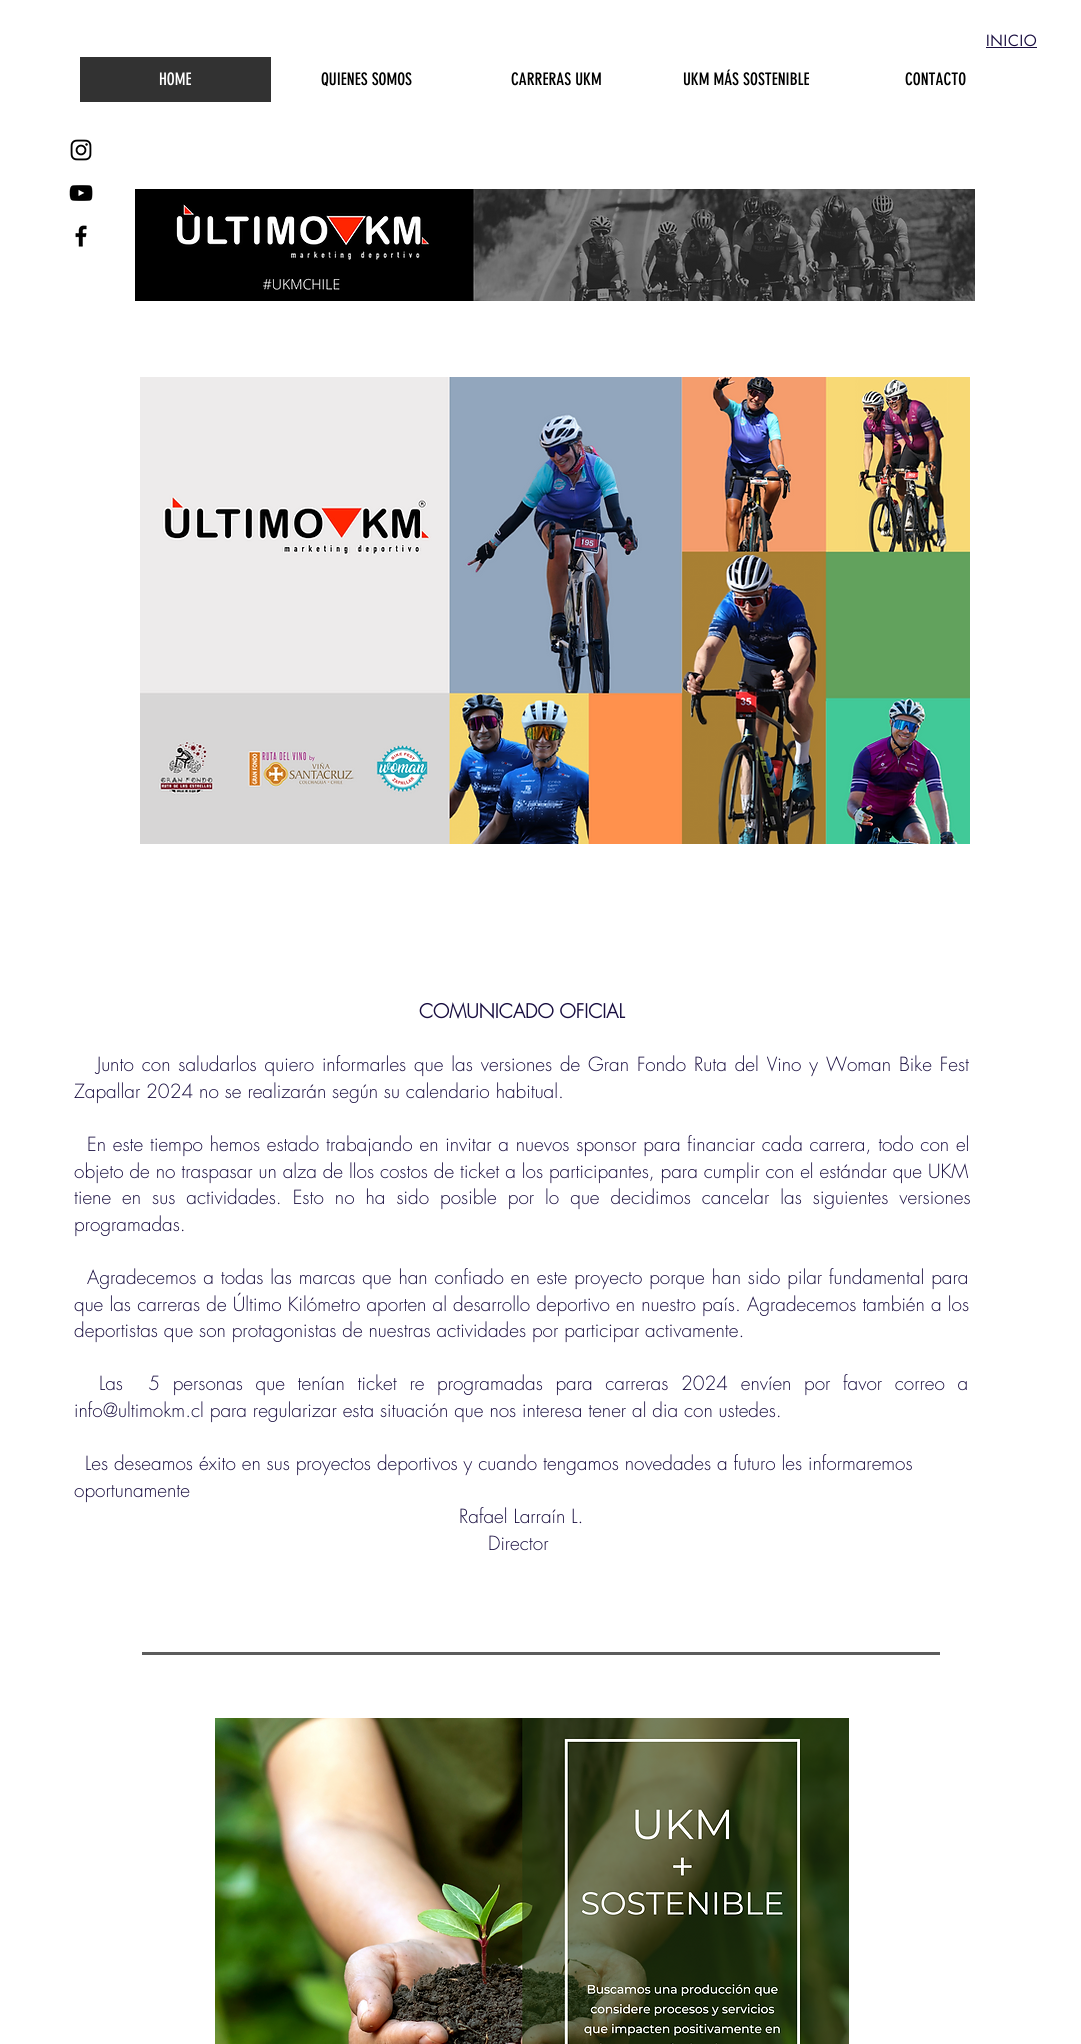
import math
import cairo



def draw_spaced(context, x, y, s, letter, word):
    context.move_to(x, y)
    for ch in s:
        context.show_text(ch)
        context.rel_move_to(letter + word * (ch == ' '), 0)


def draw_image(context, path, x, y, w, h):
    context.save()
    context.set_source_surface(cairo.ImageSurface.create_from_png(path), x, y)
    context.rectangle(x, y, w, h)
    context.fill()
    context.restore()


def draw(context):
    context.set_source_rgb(1, 1, 1)
    context.paint()
    context.set_source_rgb(25 / 255, 14 / 255, 64 / 255)
    context.rectangle(986, 47, 51, 1)
    context.fill()
    context.set_source_rgb(50 / 255, 50 / 255, 50 / 255)
    context.rectangle(80, 57, 191, 45)
    context.fill()
    draw_image(context, "images/1.png", 70, 139, 22, 22)
    draw_image(context, "images/2.png", 69, 185, 24, 16)
    draw_image(context, "images/3.png", 75, 225, 12, 22)
    draw_image(context, "images/4.png", 135, 189, 840, 112)
    draw_image(context, "images/5.png", 140, 377, 830, 467)
    context.set_source_rgb(92 / 255, 92 / 255, 92 / 255)
    context.rectangle(142, 1652, 798, 3)
    context.fill()
    draw_image(context, "images/6.png", 215, 1718, 634, 326)
    context.select_font_face("futura")
    context.set_font_size(15)
    context.set_source_rgb(25 / 255, 14 / 255, 64 / 255)
    draw_spaced(context, 986, 46, "INICIO", 0.75, 0)
    context.select_font_face("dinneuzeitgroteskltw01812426")
    context.set_font_size(17)
    context.set_source_rgb(1, 1, 1)
    context.move_to(159, 85)
    context.show_text("HOME")
    context.set_source_rgb(0, 0, 0)
    context.move_to(321, 85)
    context.show_text("QUIENES SOMOS")
    context.move_to(511, 85)
    context.show_text("CARRERAS UKM")
    context.move_to(683, 85)
    context.show_text("UKM MÁS SOSTENIBLE")
    context.move_to(905, 85)
    context.show_text("CONTACTO")
    context.select_font_face("futura", cairo.FontSlant.NORMAL, cairo.FontWeight.BOLD)
    context.set_font_size(19)
    context.set_source_rgb(25 / 255, 14 / 255, 64 / 255)
    context.move_to(419, 1018)
    context.show_text("COMUNICADO OFICIAL")
    context.select_font_face("futura Light")
    draw_spaced(context, 97, 1071, "Junto con saludarlos quiero informarles que las versiones de Gran Fondo Ruta del Vino y Woman Bike Fest", 0, 2)
    context.move_to(74, 1098)
    context.show_text("Zapallar 2024 no se realizarán según su calendario habitual.")
    draw_spaced(context, 87, 1151, "En este tiempo hemos estado trabajando en invitar a nuevos sponsor para financiar cada carrera, todo con el", 0, 0.9)
    context.move_to(74, 1178)
    context.show_text("objeto de no traspasar un alza de llos costos de ticket a los participantes, para cumplir con el estándar que UKM")
    draw_spaced(context, 74, 1204, "tiene en sus actividades. Esto no ha sido posible por lo que decidimos cancelar las siguientes versiones", 0, 5.1)
    context.move_to(74, 1231)
    context.show_text("programadas.")
    draw_spaced(context, 87, 1284, "Agradecemos a todas las marcas que han confiado en este proyecto porque han sido pilar fundamental para", 0, 1)
    draw_spaced(context, 74, 1311, "que las carreras de Último Kilómetro aporten al desarrollo deportivo en nuestro país. Agradecemos también a los", 0, 0.25)
    context.move_to(74, 1337)
    context.show_text("deportistas que son protagonistas de nuestras actividades por participar activamente.")
    draw_spaced(context, 99, 1390, "Las  5 personas que tenían ticket re programadas para carreras 2024 envíen por favor correo a", 0, 6.75)
    context.move_to(74, 1417)
    context.show_text("info@ultimokm.cl para regularizar esta situación que nos interesa tener al dia con ustedes.")
    context.move_to(85, 1470)
    context.show_text("Les deseamos éxito en sus proyectos deportivos y cuando tengamos novedades a futuro les informaremos")
    context.move_to(74, 1497)
    context.show_text("oportunamente")
    context.move_to(459, 1523)
    context.show_text("Rafael Larraín L.")
    context.move_to(488, 1550)
    context.show_text("Director")


surface = cairo.ImageSurface(cairo.Format.RGB24, 1081, 2044)
context = cairo.Context(surface)
options = cairo.FontOptions()
options.set_hint_metrics(cairo.HintMetrics.OFF)
options.set_hint_style(cairo.HintStyle.NONE)
context.set_font_options(options)
context.set_miter_limit(4)
draw(context)
surface.write_to_png("out.png")
